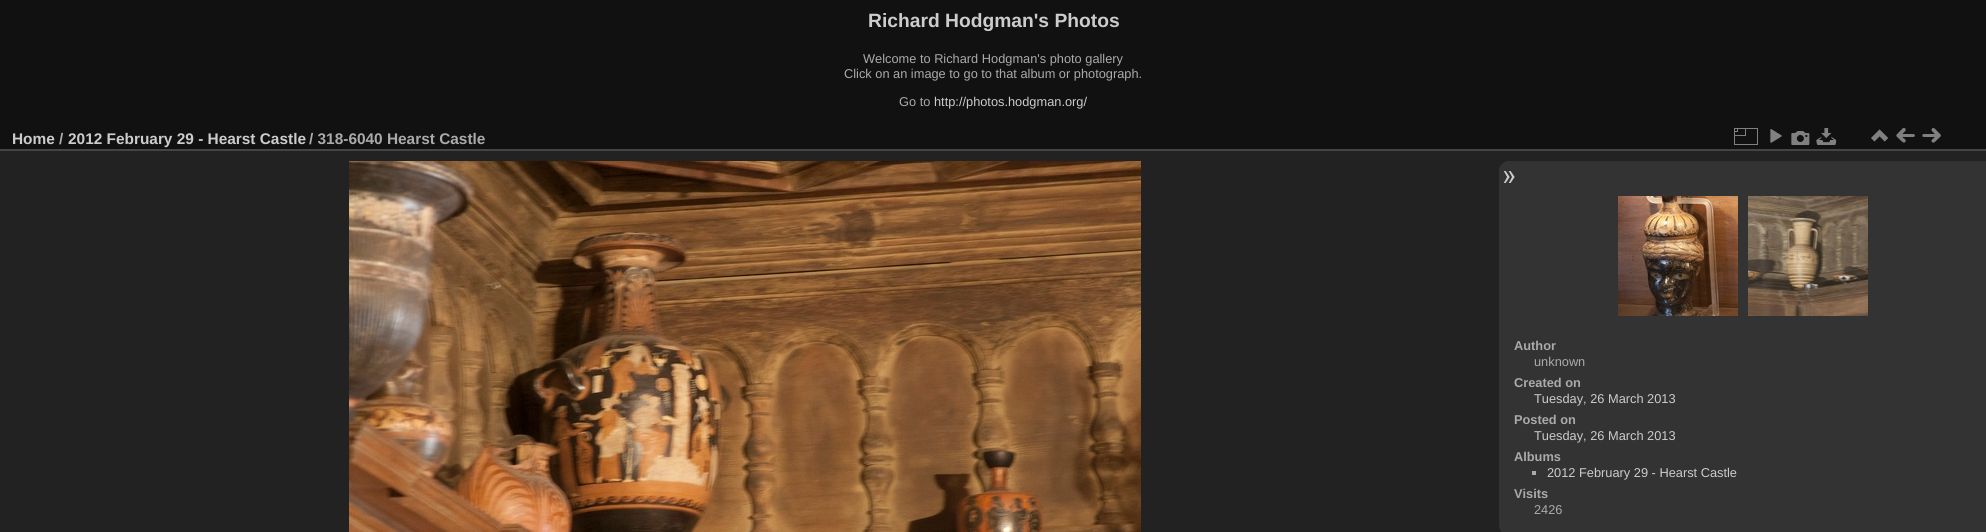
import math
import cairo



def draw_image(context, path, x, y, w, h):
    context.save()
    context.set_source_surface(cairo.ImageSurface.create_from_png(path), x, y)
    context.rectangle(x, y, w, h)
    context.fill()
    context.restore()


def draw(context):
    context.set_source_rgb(17 / 255, 17 / 255, 17 / 255)
    context.paint()
    context.set_source_rgb(34 / 255, 34 / 255, 34 / 255)
    context.rectangle(0, 151, 1986, 381)
    context.fill()
    context.set_source_rgb(68 / 255, 68 / 255, 68 / 255)
    context.rectangle(0, 149, 1986, 2)
    context.fill()
    draw_image(context, "images/1.png", 1734, 128, 24, 17)
    draw_image(context, "images/2.png", 1770, 129, 12, 14)
    draw_image(context, "images/3.png", 1791, 131, 19, 14)
    draw_image(context, "images/4.png", 1816, 128, 21, 17)
    draw_image(context, "images/5.png", 1871, 129, 17, 13)
    draw_image(context, "images/6.png", 1896, 128, 19, 15)
    draw_image(context, "images/7.png", 1922, 128, 19, 15)
    draw_image(context, "images/8.png", 349, 161, 792, 371)
    context.set_source_rgb(51 / 255, 51 / 255, 51 / 255)
    context.new_path()
    context.move_to(1509, 161)
    context.line_to(1986, 161)
    context.line_to(1986, 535)
    context.line_to(1509, 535)
    context.curve_to(1503.5, 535, 1499, 530.5, 1499, 525)
    context.line_to(1499, 171)
    context.curve_to(1499, 165.5, 1503.5, 161, 1509, 161)
    context.close_path()
    context.fill()
    draw_image(context, "images/9.png", 1503, 171, 12, 12)
    draw_image(context, "images/10.png", 1618, 196, 120, 120)
    draw_image(context, "images/11.png", 1748, 196, 120, 120)
    context.set_source_rgb(170 / 255, 170 / 255, 170 / 255)
    context.rectangle(1532, 471, 4, 4)
    context.fill()
    context.select_font_face("Liberation Sans", cairo.FontSlant.NORMAL, cairo.FontWeight.BOLD)
    context.set_font_size(19.25)
    context.set_source_rgb(204 / 255, 204 / 255, 204 / 255)
    context.move_to(868, 27)
    context.show_text("Richard Hodgman's Photos")
    context.select_font_face("Liberation Sans")
    context.set_font_size(12.8)
    context.set_source_rgb(170 / 255, 170 / 255, 170 / 255)
    context.move_to(863, 63)
    context.show_text("Welcome to Richard Hodgman's photo gallery")
    context.move_to(844, 78)
    context.show_text("Click on an image to go to that album or photograph.")
    context.move_to(899, 106)
    context.show_text("Go to")
    context.set_source_rgb(204 / 255, 204 / 255, 204 / 255)
    context.move_to(934, 106)
    context.show_text("http://photos.hodgman.org/")
    context.select_font_face("Liberation Sans", cairo.FontSlant.NORMAL, cairo.FontWeight.BOLD)
    context.set_font_size(15.4)
    context.move_to(12, 144)
    context.show_text("Home")
    context.set_source_rgb(170 / 255, 170 / 255, 170 / 255)
    context.move_to(59, 144)
    context.show_text("/")
    context.set_source_rgb(204 / 255, 204 / 255, 204 / 255)
    context.move_to(68, 144)
    context.show_text("2012 February 29 - Hearst Castle")
    context.set_source_rgb(170 / 255, 170 / 255, 170 / 255)
    context.move_to(309, 144)
    context.show_text("/ 318-6040 Hearst Castle")
    context.set_font_size(12.8)
    context.move_to(1514, 350)
    context.show_text("Author")
    context.select_font_face("Liberation Sans")
    context.move_to(1534, 366)
    context.show_text("unknown")
    context.select_font_face("Liberation Sans", cairo.FontSlant.NORMAL, cairo.FontWeight.BOLD)
    context.move_to(1514, 387)
    context.show_text("Created on")
    context.select_font_face("Liberation Sans")
    context.set_source_rgb(204 / 255, 204 / 255, 204 / 255)
    context.move_to(1534, 403)
    context.show_text("Tuesday, 26 March 2013")
    context.select_font_face("Liberation Sans", cairo.FontSlant.NORMAL, cairo.FontWeight.BOLD)
    context.set_source_rgb(170 / 255, 170 / 255, 170 / 255)
    context.move_to(1514, 424)
    context.show_text("Posted on")
    context.select_font_face("Liberation Sans")
    context.set_source_rgb(204 / 255, 204 / 255, 204 / 255)
    context.move_to(1534, 440)
    context.show_text("Tuesday, 26 March 2013")
    context.select_font_face("Liberation Sans", cairo.FontSlant.NORMAL, cairo.FontWeight.BOLD)
    context.set_source_rgb(170 / 255, 170 / 255, 170 / 255)
    context.move_to(1514, 461)
    context.show_text("Albums")
    context.select_font_face("Liberation Sans")
    context.set_source_rgb(204 / 255, 204 / 255, 204 / 255)
    context.move_to(1547, 477)
    context.show_text("2012 February 29 - Hearst Castle")
    context.select_font_face("Liberation Sans", cairo.FontSlant.NORMAL, cairo.FontWeight.BOLD)
    context.set_source_rgb(170 / 255, 170 / 255, 170 / 255)
    context.move_to(1514, 498)
    context.show_text("Visits")
    context.select_font_face("Liberation Sans")
    context.move_to(1534, 514)
    context.show_text("2426")


surface = cairo.ImageSurface(cairo.Format.RGB24, 1986, 532)
context = cairo.Context(surface)
options = cairo.FontOptions()
options.set_hint_metrics(cairo.HintMetrics.OFF)
options.set_hint_style(cairo.HintStyle.NONE)
context.set_font_options(options)
context.set_miter_limit(4)
draw(context)
surface.write_to_png("out.png")
